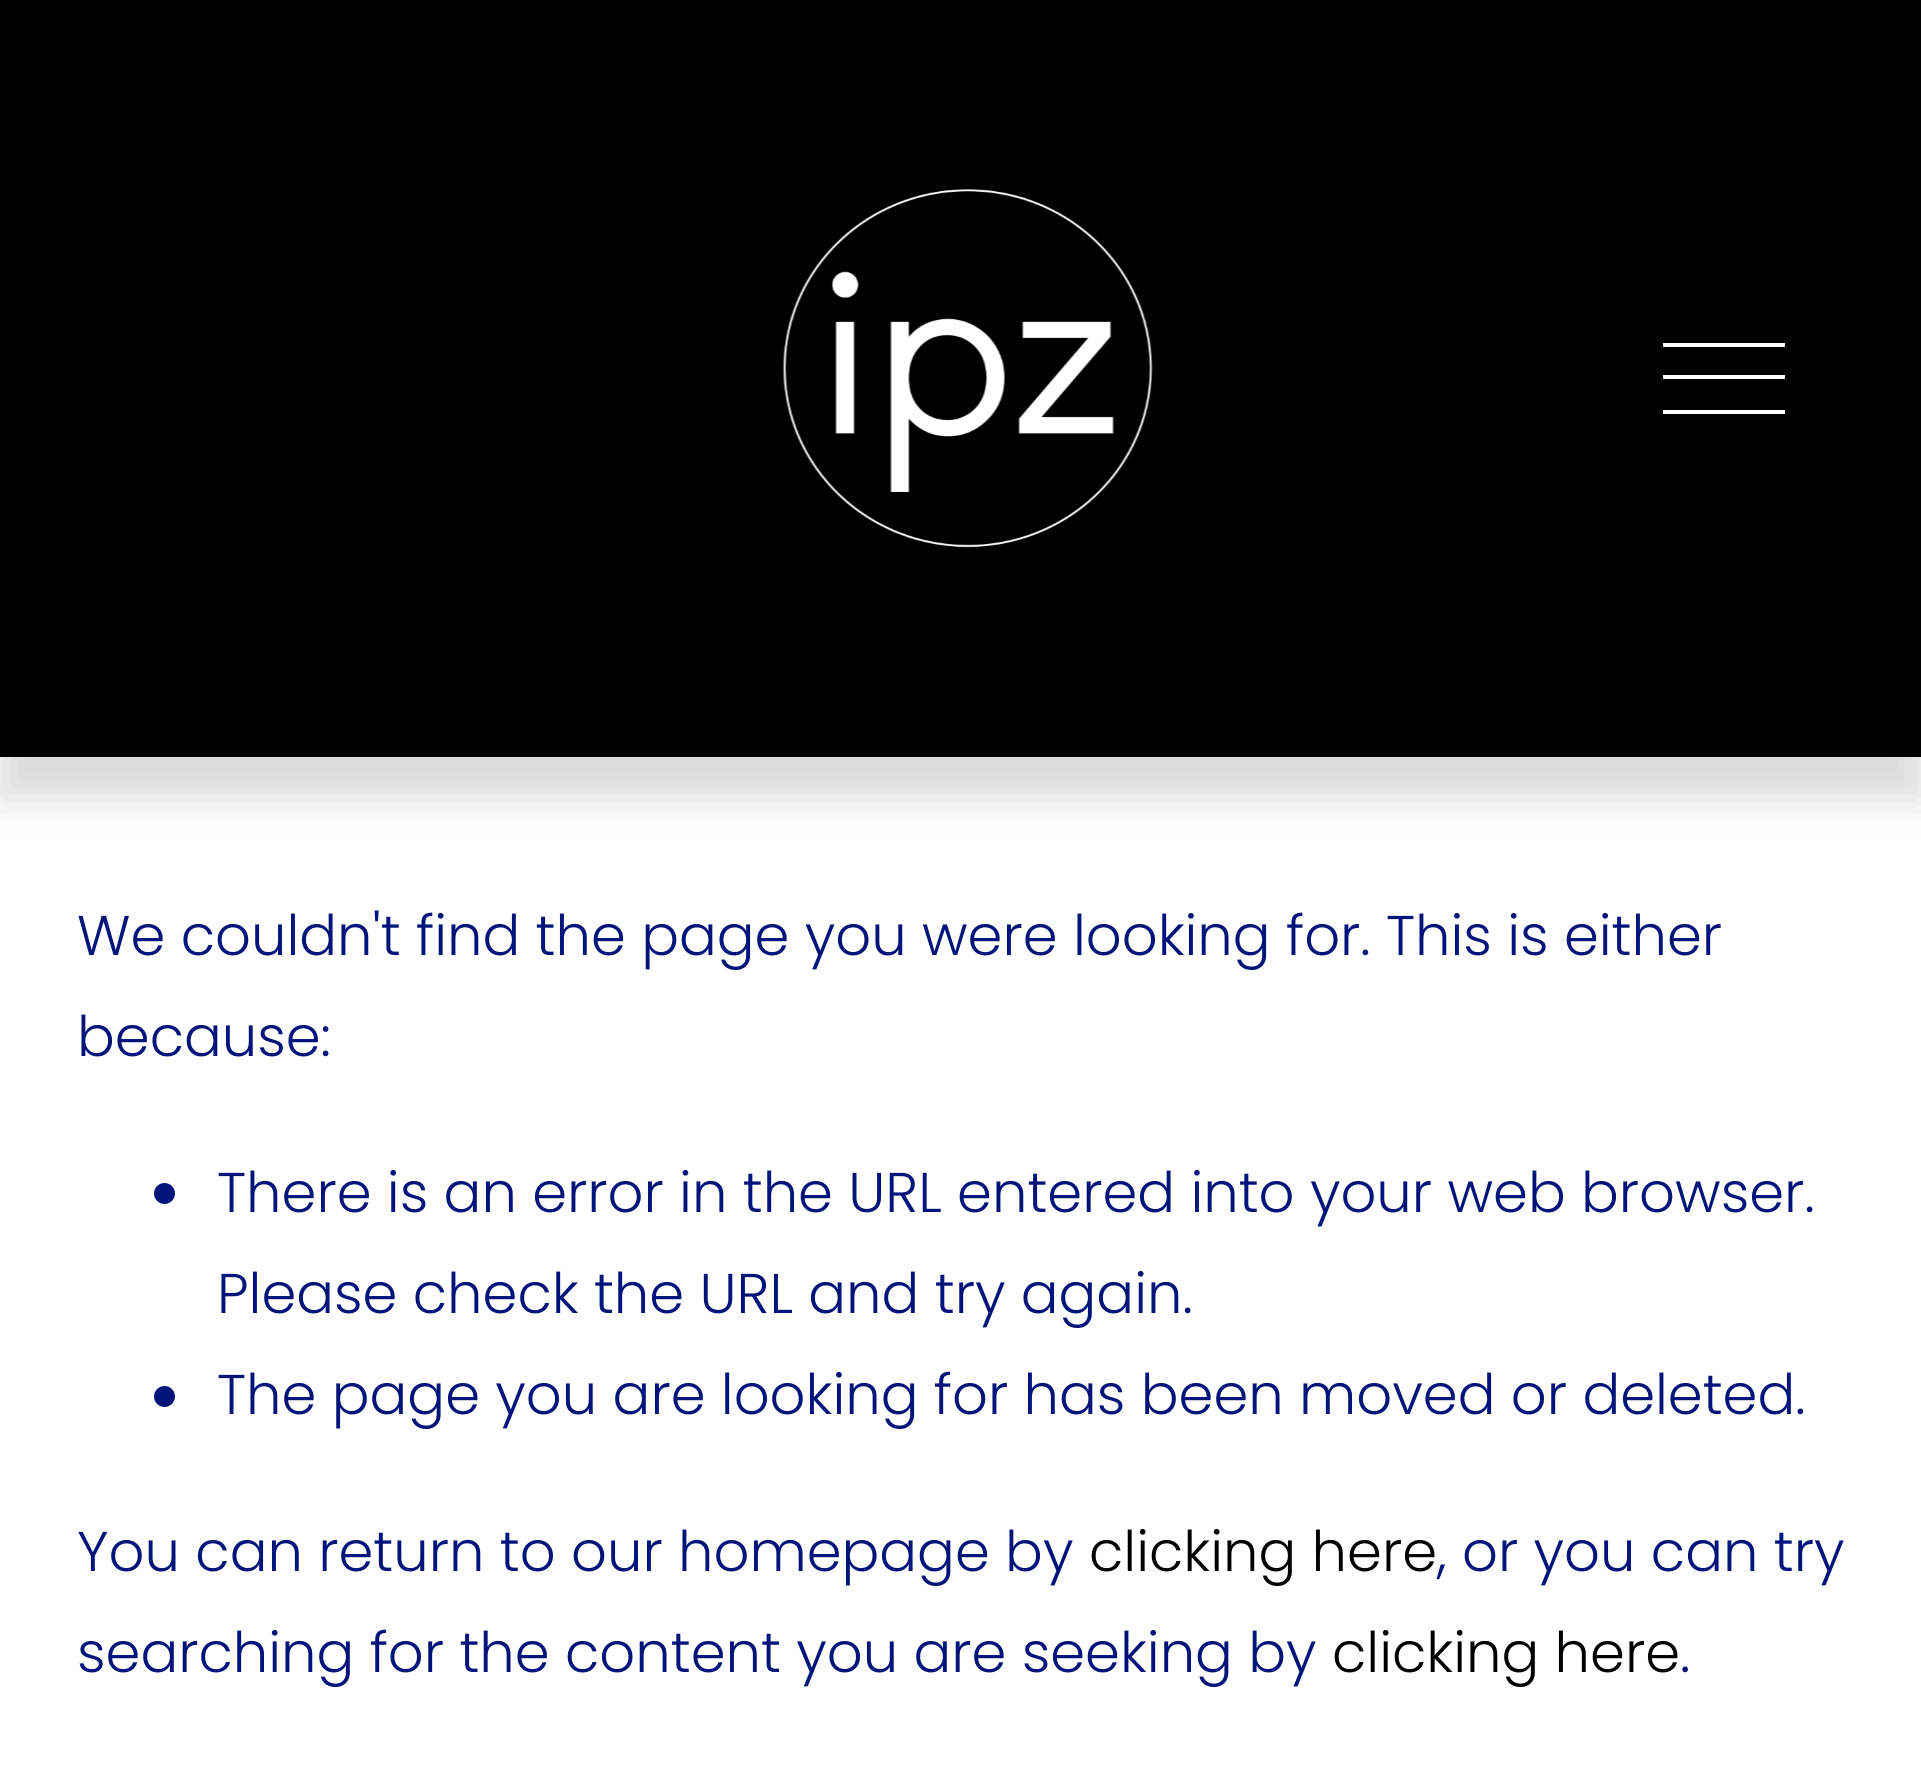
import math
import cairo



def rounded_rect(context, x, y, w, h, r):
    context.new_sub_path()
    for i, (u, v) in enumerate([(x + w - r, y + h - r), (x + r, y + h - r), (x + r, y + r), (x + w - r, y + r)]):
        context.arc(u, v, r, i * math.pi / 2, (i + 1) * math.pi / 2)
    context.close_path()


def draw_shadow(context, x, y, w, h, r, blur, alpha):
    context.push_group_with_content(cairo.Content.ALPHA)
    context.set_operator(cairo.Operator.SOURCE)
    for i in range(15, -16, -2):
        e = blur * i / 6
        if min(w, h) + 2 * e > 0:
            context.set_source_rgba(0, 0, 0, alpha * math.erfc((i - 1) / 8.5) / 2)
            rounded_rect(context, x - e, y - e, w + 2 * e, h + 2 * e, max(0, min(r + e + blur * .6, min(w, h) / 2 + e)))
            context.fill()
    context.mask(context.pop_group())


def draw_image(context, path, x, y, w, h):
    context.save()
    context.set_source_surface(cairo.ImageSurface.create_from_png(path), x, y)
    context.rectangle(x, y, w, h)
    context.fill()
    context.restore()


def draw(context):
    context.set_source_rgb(1, 1, 1)
    context.paint()
    context.set_source_rgb(0, 0, 0)
    context.rectangle(0, 0, 1921, 753)
    context.fill()
    context.save()
    context.rectangle(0, 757, 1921, 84)
    context.clip()
    context.set_source_rgb(217 / 255, 217 / 255, 217 / 255)
    draw_shadow(context, 0, 42, 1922, 756, 0, 21, 1)
    context.restore()
    draw_image(context, "images/1.png", 783, 189, 370, 359)
    context.set_source_rgb(1, 1, 1)
    context.rectangle(1663, 343, 122, 4)
    context.fill()
    context.rectangle(1663, 375, 122, 4)
    context.fill()
    context.rectangle(1663, 410, 122, 4)
    context.fill()
    context.set_source_rgb(0, 0, 0)
    context.rectangle(0, 753, 1921, 4)
    context.fill()
    context.set_source_rgb(0, 20 / 255, 122 / 255)
    context.arc(164.5, 1193.5, 10.5, 0, 2 * math.pi)
    context.fill()
    context.arc(164.5, 1396.5, 10.5, 0, 2 * math.pi)
    context.fill()
    context.select_font_face("Poppins Light")
    context.set_font_size(56)
    context.move_to(77, 955)
    context.show_text("We couldn't find the page you were looking for. This is either")
    context.move_to(77, 1056)
    context.show_text("because:")
    context.move_to(217, 1212)
    context.show_text("There is an error in the URL entered into your web browser.")
    context.move_to(217, 1313)
    context.show_text("Please check the URL and try again.")
    context.move_to(217, 1414)
    context.show_text("The page you are looking for has been moved or deleted.")
    context.move_to(77, 1571)
    context.show_text("You can return to our homepage by")
    context.set_source_rgb(0, 0, 0)
    context.move_to(1089, 1571)
    context.show_text("clicking here")
    context.set_source_rgb(0, 20 / 255, 122 / 255)
    context.move_to(1437, 1571)
    context.show_text(", or you can try")
    context.move_to(77, 1672)
    context.show_text("searching for the content you are seeking by")
    context.set_source_rgb(0, 0, 0)
    context.move_to(1332, 1672)
    context.show_text("clicking here")
    context.set_source_rgb(0, 20 / 255, 122 / 255)
    context.move_to(1680, 1672)
    context.show_text(".")


surface = cairo.ImageSurface(cairo.Format.RGB24, 1921, 1775)
context = cairo.Context(surface)
options = cairo.FontOptions()
options.set_hint_metrics(cairo.HintMetrics.OFF)
options.set_hint_style(cairo.HintStyle.NONE)
context.set_font_options(options)
context.set_miter_limit(4)
draw(context)
surface.write_to_png("out.png")
